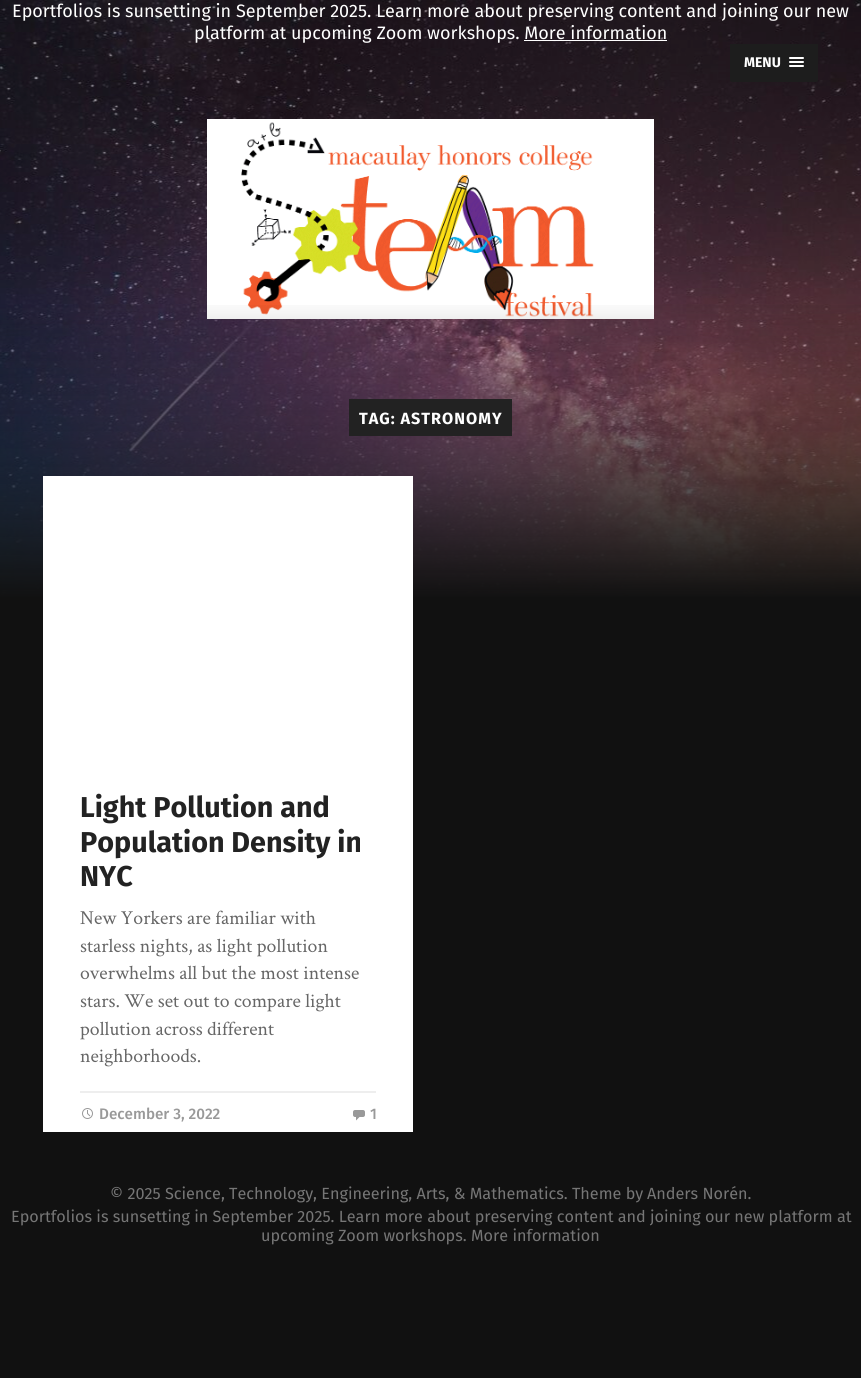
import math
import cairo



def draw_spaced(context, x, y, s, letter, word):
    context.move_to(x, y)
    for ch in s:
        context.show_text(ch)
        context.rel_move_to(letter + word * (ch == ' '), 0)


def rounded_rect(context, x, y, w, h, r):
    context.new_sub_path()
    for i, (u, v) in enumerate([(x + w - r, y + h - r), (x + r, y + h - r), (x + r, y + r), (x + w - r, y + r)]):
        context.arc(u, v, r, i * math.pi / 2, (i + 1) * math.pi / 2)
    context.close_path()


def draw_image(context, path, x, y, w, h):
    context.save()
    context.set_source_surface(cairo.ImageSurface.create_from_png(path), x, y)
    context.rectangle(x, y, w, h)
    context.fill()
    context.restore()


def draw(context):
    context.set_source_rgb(17 / 255, 17 / 255, 17 / 255)
    context.paint()
    draw_image(context, "images/1.png", 0, 0, 861, 597)
    context.set_source_rgb(1, 1, 1)
    context.rectangle(524, 40, 143, 1)
    context.fill()
    context.set_source_rgb(29 / 255, 29 / 255, 29 / 255)
    context.new_path()
    context.move_to(730, 44)
    context.line_to(818, 44)
    context.line_to(818, 80)
    context.curve_to(818, 81, 817, 82, 816, 82)
    context.line_to(732, 82)
    context.curve_to(731, 82, 730, 81, 730, 80)
    context.close_path()
    context.fill()
    context.set_source_rgb(1, 1, 1)
    rounded_rect(context, 789, 57, 15, 2, 1)
    context.fill()
    rounded_rect(context, 789, 61, 15, 2, 1)
    context.fill()
    rounded_rect(context, 789, 65, 15, 2, 1)
    context.fill()
    draw_image(context, "images/2.png", 207, 119, 447, 200)
    gradient = cairo.LinearGradient(431, 299, 431, 599)
    gradient.add_color_stop_rgba(0, 17 / 255, 17 / 255, 17 / 255, 0)
    gradient.add_color_stop_rgba(1, 17 / 255, 17 / 255, 17 / 255, 1)
    context.set_source(gradient)
    context.rectangle(0, 305, 861, 292)
    context.fill()
    context.set_source_rgb(34 / 255, 34 / 255, 34 / 255)
    context.rectangle(349, 399, 163, 37)
    context.fill()
    context.set_source_rgb(1, 1, 1)
    context.rectangle(43, 476, 370, 656)
    context.fill()
    context.set_source_rgb(238 / 255, 238 / 255, 238 / 255)
    context.rectangle(80, 1091, 296, 2)
    context.fill()
    draw_image(context, "images/3.png", 82, 1108, 11, 11)
    draw_image(context, "images/4.png", 353, 1110, 12, 11)
    context.select_font_face("Fira Sans")
    context.set_font_size(18)
    context.set_source_rgb(1, 1, 1)
    context.move_to(12, 17)
    context.show_text("Eportfolios is sunsetting in September 2025. Learn more about preserving content and joining our new")
    context.move_to(194, 39)
    context.show_text("platform at upcoming Zoom workshops. More information")
    context.select_font_face("Fira Sans", cairo.FontSlant.NORMAL, cairo.FontWeight.BOLD)
    context.set_font_size(14)
    context.move_to(744, 67)
    context.show_text("MENU")
    context.set_font_size(16.2)
    draw_spaced(context, 359, 424, "TAG: ASTRONOMY", 1, 0)
    context.set_font_size(28.75)
    context.set_source_rgb(34 / 255, 34 / 255, 34 / 255)
    context.move_to(80, 817)
    context.show_text("Light Pollution and")
    context.move_to(80, 852)
    context.show_text("Population Density in")
    context.move_to(80, 886)
    context.show_text("NYC")
    context.select_font_face("Crimson Text")
    context.set_font_size(19.75)
    context.set_source_rgb(102 / 255, 102 / 255, 102 / 255)
    context.move_to(80, 924)
    context.show_text("New Yorkers are familiar with")
    context.move_to(80, 952)
    context.show_text("starless nights, as light pollution")
    context.move_to(80, 979)
    context.show_text("overwhelms all but the most intense")
    context.move_to(80, 1007)
    context.show_text("stars. We set out to compare light")
    context.move_to(80, 1035)
    context.show_text("pollution across different")
    context.move_to(80, 1062)
    context.show_text("neighborhoods.")
    context.select_font_face("Fira Sans Medium")
    context.set_font_size(15.25)
    context.set_source_rgb(153 / 255, 153 / 255, 153 / 255)
    context.move_to(99, 1119)
    context.show_text("December 3, 2022")
    context.move_to(370, 1119)
    context.show_text("1")
    context.select_font_face("Fira Sans")
    context.set_font_size(16.2)
    context.set_source_rgb(118 / 255, 118 / 255, 118 / 255)
    context.move_to(110, 1199)
    context.show_text("© 2025 Science, Technology, Engineering, Arts, & Mathematics. Theme by")
    context.move_to(647, 1199)
    context.show_text("Anders Norén.")
    context.move_to(11, 1222)
    context.show_text("Eportfolios is sunsetting in September 2025. Learn more about preserving content and joining our new platform at")
    context.move_to(261, 1241)
    context.show_text("upcoming Zoom workshops. More information")


surface = cairo.ImageSurface(cairo.Format.RGB24, 861, 1378)
context = cairo.Context(surface)
options = cairo.FontOptions()
options.set_hint_metrics(cairo.HintMetrics.OFF)
options.set_hint_style(cairo.HintStyle.NONE)
context.set_font_options(options)
context.set_miter_limit(4)
draw(context)
surface.write_to_png("out.png")
